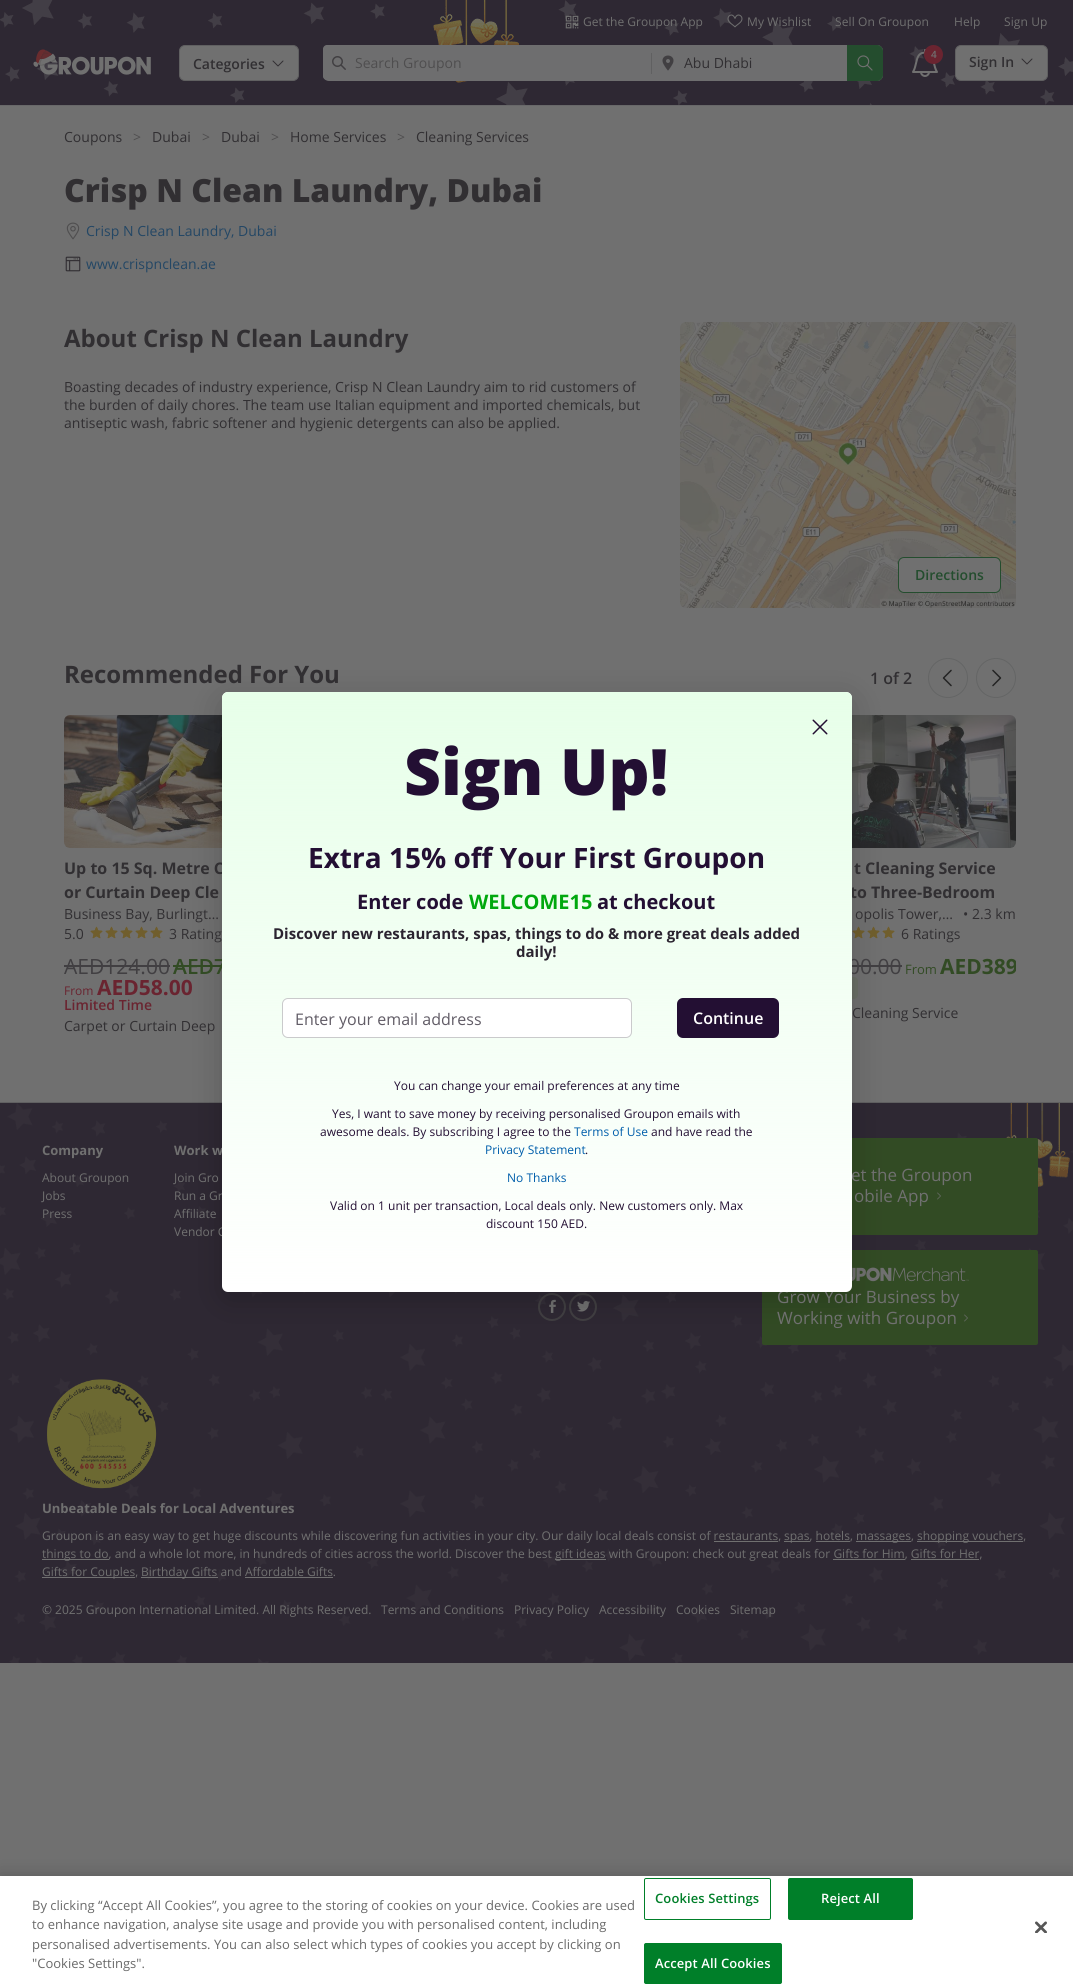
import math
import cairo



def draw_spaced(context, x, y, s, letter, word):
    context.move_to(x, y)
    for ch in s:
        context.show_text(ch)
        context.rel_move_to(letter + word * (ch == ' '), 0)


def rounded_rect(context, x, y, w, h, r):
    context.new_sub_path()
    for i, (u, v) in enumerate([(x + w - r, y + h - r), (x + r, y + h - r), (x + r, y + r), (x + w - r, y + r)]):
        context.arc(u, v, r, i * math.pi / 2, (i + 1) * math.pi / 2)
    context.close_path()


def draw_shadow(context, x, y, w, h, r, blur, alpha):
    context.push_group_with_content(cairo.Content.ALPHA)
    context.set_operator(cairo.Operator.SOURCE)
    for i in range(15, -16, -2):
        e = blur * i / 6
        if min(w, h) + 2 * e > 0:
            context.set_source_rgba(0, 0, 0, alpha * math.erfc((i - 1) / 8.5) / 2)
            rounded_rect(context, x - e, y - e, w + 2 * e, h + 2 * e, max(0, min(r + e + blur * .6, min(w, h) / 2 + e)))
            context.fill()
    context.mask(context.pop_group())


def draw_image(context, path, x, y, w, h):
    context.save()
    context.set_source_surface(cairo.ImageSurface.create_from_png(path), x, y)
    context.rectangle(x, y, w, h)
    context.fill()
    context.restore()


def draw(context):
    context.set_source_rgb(112 / 255, 112 / 255, 112 / 255)
    context.paint()
    draw_image(context, "images/1.png", 0, 0, 1073, 105)
    draw_image(context, "images/2.png", 565, 15, 14, 14)
    draw_image(context, "images/3.png", 727, 14, 16, 14)
    draw_image(context, "images/4.png", 33, 49, 118, 26)
    context.set_source_rgb(112 / 255, 112 / 255, 112 / 255)
    rounded_rect(context, 179.5, 45.5, 119, 35, 5.5)
    context.fill_preserve()
    context.set_source_rgb(96 / 255, 96 / 255, 97 / 255)
    context.set_line_width(1)
    context.stroke()
    draw_image(context, "images/5.png", 272, 60, 12, 7)
    context.set_source_rgb(110 / 255, 110 / 255, 111 / 255)
    rounded_rect(context, 323, 45, 560, 36, 6)
    context.fill()
    rounded_rect(context, 323, 45, 328, 35, 4)
    context.fill()
    draw_image(context, "images/6.png", 332, 56, 14, 14)
    context.set_source_rgb(96 / 255, 96 / 255, 97 / 255)
    context.rectangle(651, 53, 1, 21)
    context.fill()
    draw_image(context, "images/7.png", 662, 55, 12, 16)
    context.set_source_rgb(36 / 255, 77 / 255, 46 / 255)
    context.new_path()
    context.move_to(847.5, 45.5)
    context.line_to(877, 45.5)
    context.curve_to(880, 45.5, 882.5, 48, 882.5, 51)
    context.line_to(882.5, 75)
    context.curve_to(882.5, 78, 880, 80.5, 877, 80.5)
    context.line_to(847.5, 80.5)
    context.close_path()
    context.fill_preserve()
    context.stroke()
    draw_image(context, "images/8.png", 857, 55, 16, 16)
    draw_image(context, "images/9.png", 912, 49, 26, 28)
    context.set_source_rgb(106 / 255, 36 / 255, 48 / 255)
    context.arc(933.5, 54.5, 9.5, 0, 2 * math.pi)
    context.fill()
    context.set_source_rgb(112 / 255, 112 / 255, 112 / 255)
    rounded_rect(context, 955.5, 45.5, 92, 35, 5.5)
    context.fill_preserve()
    context.set_source_rgb(96 / 255, 96 / 255, 97 / 255)
    context.stroke()
    draw_image(context, "images/5.png", 1021, 58, 12, 7)
    context.set_source_rgb(104 / 255, 104 / 255, 105 / 255)
    context.rectangle(0, 105, 1073, 1)
    context.fill()
    draw_image(context, "images/10.png", 66, 222, 14, 18)
    draw_image(context, "images/11.png", 65, 256, 16, 16)
    draw_image(context, "images/12.png", 680, 322, 336, 286)
    context.set_source_rgb(112 / 255, 112 / 255, 112 / 255)
    rounded_rect(context, 898.5, 557.5, 102, 35, 5.5)
    context.fill_preserve()
    context.set_source_rgb(36 / 255, 77 / 255, 46 / 255)
    context.stroke()
    context.arc(948, 678, 19.5, 0, 2 * math.pi)
    context.set_source_rgb(100 / 255, 101 / 255, 101 / 255)
    context.stroke()
    draw_image(context, "images/13.png", 942, 669, 10, 18)
    context.arc(996, 678, 19.5, 0, 2 * math.pi)
    context.stroke()
    draw_image(context, "images/14.png", 992, 669, 10, 18)
    draw_image(context, "images/15.png", 64, 715, 158, 133)
    draw_image(context, "images/16.png", 90, 926, 13, 13)
    draw_image(context, "images/17.png", 90, 926, 13, 13)
    draw_image(context, "images/16.png", 105, 926, 13, 13)
    draw_image(context, "images/17.png", 105, 926, 13, 13)
    draw_image(context, "images/16.png", 120, 926, 13, 13)
    draw_image(context, "images/17.png", 120, 926, 13, 13)
    draw_image(context, "images/16.png", 135, 926, 13, 13)
    draw_image(context, "images/17.png", 135, 926, 13, 13)
    draw_image(context, "images/16.png", 150, 926, 13, 13)
    draw_image(context, "images/17.png", 150, 926, 13, 13)
    context.set_source_rgb(65 / 255, 63 / 255, 66 / 255)
    context.rectangle(64, 965, 106, 2)
    context.fill()
    context.set_source_rgb(50 / 255, 75 / 255, 36 / 255)
    context.rectangle(173, 965, 49, 2)
    context.fill()
    draw_image(context, "images/18.png", 852, 715, 164, 133)
    draw_image(context, "images/16.png", 852, 926, 13, 13)
    draw_image(context, "images/17.png", 852, 926, 13, 13)
    draw_image(context, "images/16.png", 867, 926, 13, 13)
    draw_image(context, "images/17.png", 867, 926, 13, 13)
    draw_image(context, "images/16.png", 882, 926, 13, 13)
    draw_image(context, "images/17.png", 882, 926, 13, 13)
    context.set_source_rgb(65 / 255, 63 / 255, 66 / 255)
    context.rectangle(852, 965, 50, 2)
    context.fill()
    context.set_source_rgb(106 / 255, 111 / 255, 102 / 255)
    rounded_rect(context, 796, 977, 62, 22, 4)
    context.fill()
    draw_image(context, "images/20.png", 0, 1103, 1073, 560)
    context.set_source_rgb(96 / 255, 96 / 255, 97 / 255)
    context.rectangle(0, 1102, 1073, 1)
    context.fill()
    context.arc(552, 1307, 13, 0, 2 * math.pi)
    context.set_source_rgb(65 / 255, 63 / 255, 66 / 255)
    context.set_line_width(2)
    context.stroke()
    draw_image(context, "images/21.png", 549, 1299, 7, 14)
    context.arc(583, 1307, 13, 0, 2 * math.pi)
    context.stroke()
    draw_image(context, "images/22.png", 577, 1300, 13, 12)
    context.set_source_rgb(50 / 255, 75 / 255, 36 / 255)
    rounded_rect(context, 762, 1138, 276, 97, 2)
    context.fill()
    rounded_rect(context, 762, 1250, 276, 95, 2)
    context.fill()
    draw_image(context, "images/24.png", 852, 1267, 117, 15)
    context.set_source_rgb(0, 0, 0)
    draw_shadow(context, 222, 700, 630, 600, 6, 16, 0.2)
    draw_image(context, "images/23.png", 937, 1192, 4, 8)
    draw_image(context, "images/23.png", 964, 1314, 4, 8)
    draw_image(context, "images/25.png", 47, 1379, 110, 110)
    context.set_source_rgb(112 / 255, 112 / 255, 112 / 255)
    context.rectangle(784, 1541, 26, 1)
    context.fill()
    context.rectangle(856, 1541, 55, 1)
    context.fill()
    context.rectangle(917, 1541, 106, 1)
    context.fill()
    context.rectangle(714, 1541, 64, 1)
    context.fill()
    context.rectangle(816, 1541, 34, 1)
    context.fill()
    context.rectangle(42, 1559, 67, 1)
    context.fill()
    context.rectangle(555, 1559, 51, 1)
    context.fill()
    context.rectangle(833, 1559, 72, 1)
    context.fill()
    context.rectangle(911, 1559, 68, 1)
    context.fill()
    context.rectangle(42, 1577, 93, 1)
    context.fill()
    context.rectangle(141, 1577, 77, 1)
    context.fill()
    context.rectangle(245, 1577, 88, 1)
    context.fill()
    context.set_source_rgb(0, 0, 0)
    draw_shadow(context, 0, 1876, 1073, 108, 0, 9, 0.2)
    context.set_source_rgb(1, 1, 1)
    context.rectangle(0, 1876, 1073, 108)
    context.fill()
    rounded_rect(context, 644.5, 1878.5, 126, 41, 1.5)
    context.set_source_rgb(0, 127 / 255, 41 / 255)
    context.set_line_width(1)
    context.stroke()
    rounded_rect(context, 788.5, 1878.5, 124, 41, 1.5)
    context.fill_preserve()
    context.stroke()
    rounded_rect(context, 644.5, 1943.5, 137, 40, 1.5)
    context.fill_preserve()
    context.stroke()
    draw_image(context, "images/26.png", 1035, 1921, 12, 12)
    context.select_font_face("Open Sans")
    context.set_font_size(12)
    context.set_source_rgb(112 / 255, 112 / 255, 112 / 255)
    context.move_to(583, 26)
    context.show_text("Get the Groupon App")
    draw_spaced(context, 747, 26, "My Wishlist", 0.1, 0)
    draw_spaced(context, 835, 26, "Sell On Groupon", 0.1, 0)
    draw_spaced(context, 954, 26, "Help", 0.1, 0)
    draw_spaced(context, 1004, 26, "Sign Up", 0.1, 0)
    context.select_font_face("Open Sans SemiBold")
    context.set_font_size(14)
    context.set_source_rgb(49 / 255, 47 / 255, 50 / 255)
    context.move_to(193, 69)
    context.show_text("Categories")
    context.select_font_face("Open Sans")
    context.set_source_rgb(79 / 255, 78 / 255, 79 / 255)
    context.move_to(355, 68)
    context.show_text("Search Groupon")
    context.set_source_rgb(49 / 255, 47 / 255, 50 / 255)
    context.move_to(684, 68)
    context.show_text("Abu Dhabi")
    context.select_font_face("Open Sans SemiBold")
    context.set_font_size(10)
    context.set_source_rgb(112 / 255, 112 / 255, 112 / 255)
    context.move_to(931, 58)
    context.show_text("4")
    context.set_font_size(14)
    context.set_source_rgb(49 / 255, 47 / 255, 50 / 255)
    context.move_to(969, 67)
    context.show_text("Sign In")
    context.select_font_face("Open Sans")
    context.move_to(64, 142)
    context.show_text("Coupons")
    context.set_source_rgb(79 / 255, 78 / 255, 79 / 255)
    context.move_to(133, 142)
    context.show_text(">")
    context.set_source_rgb(49 / 255, 47 / 255, 50 / 255)
    context.move_to(152, 142)
    context.show_text("Dubai")
    context.set_source_rgb(79 / 255, 78 / 255, 79 / 255)
    context.move_to(202, 142)
    context.show_text(">")
    context.set_source_rgb(49 / 255, 47 / 255, 50 / 255)
    context.move_to(221, 142)
    context.show_text("Dubai")
    context.set_source_rgb(79 / 255, 78 / 255, 79 / 255)
    context.move_to(271, 142)
    context.show_text(">")
    context.set_source_rgb(49 / 255, 47 / 255, 50 / 255)
    context.move_to(290, 142)
    context.show_text("Home Services")
    context.set_source_rgb(79 / 255, 78 / 255, 79 / 255)
    context.move_to(397, 142)
    context.show_text(">")
    context.set_source_rgb(49 / 255, 47 / 255, 50 / 255)
    context.move_to(416, 142)
    context.show_text("Cleaning Services")
    context.select_font_face("Open Sans ExtraBold")
    context.set_font_size(32)
    context.move_to(64, 202)
    context.show_text("Crisp N Clean Laundry, Dubai")
    context.select_font_face("Open Sans")
    context.set_font_size(14)
    context.set_source_rgb(36 / 255, 71 / 255, 101 / 255)
    context.move_to(86, 236)
    context.show_text("Crisp N Clean Laundry, Dubai")
    context.move_to(86, 269)
    context.show_text("www.crispnclean.ae")
    context.select_font_face("Open Sans", cairo.FontSlant.NORMAL, cairo.FontWeight.BOLD)
    context.set_font_size(24)
    context.set_source_rgb(49 / 255, 47 / 255, 50 / 255)
    context.move_to(64, 347)
    context.show_text("About Crisp N Clean Laundry")
    context.select_font_face("Open Sans")
    context.set_font_size(14)
    context.move_to(64, 392)
    context.show_text("Boasting decades of industry experience, Crisp N Clean Laundry aim to rid customers of")
    context.move_to(64, 410)
    context.show_text("the burden of daily chores. The team use Italian equipment and imported chemicals, but")
    context.move_to(64, 428)
    context.show_text("antiseptic wash, fabric softener and hygienic detergents can also be applied.")
    context.select_font_face("Open Sans SemiBold")
    context.set_source_rgb(36 / 255, 77 / 255, 46 / 255)
    context.move_to(915, 580)
    context.show_text("Directions")
    context.select_font_face("Open Sans", cairo.FontSlant.NORMAL, cairo.FontWeight.BOLD)
    context.set_font_size(24)
    context.set_source_rgb(49 / 255, 47 / 255, 50 / 255)
    context.move_to(64, 683)
    context.show_text("Recommended For You")
    context.select_font_face("Open Sans SemiBold")
    context.set_font_size(16)
    context.move_to(870, 684)
    context.show_text("1 of 2")
    context.select_font_face("Open Sans", cairo.FontSlant.NORMAL, cairo.FontWeight.BOLD)
    context.move_to(64, 874)
    context.show_text("Up to 15 Sq. Metre C")
    context.move_to(64, 898)
    context.show_text("or Curtain Deep Cle")
    context.select_font_face("Open Sans")
    context.set_font_size(14)
    context.move_to(64, 919)
    context.show_text("Business Bay, Burlingt…")
    context.move_to(64, 939)
    context.show_text("5.0")
    context.move_to(169, 939)
    context.show_text("3 Rating")
    context.set_font_size(21)
    context.set_source_rgb(65 / 255, 63 / 255, 66 / 255)
    context.move_to(64, 974)
    context.show_text("AED124.00")
    context.select_font_face("Open Sans SemiBold")
    context.set_source_rgb(50 / 255, 75 / 255, 36 / 255)
    context.move_to(173, 974)
    context.show_text("AED7")
    context.select_font_face("Open Sans")
    context.set_font_size(12)
    context.set_source_rgb(106 / 255, 36 / 255, 48 / 255)
    context.move_to(64, 995)
    context.show_text("From")
    context.select_font_face("Open Sans", cairo.FontSlant.NORMAL, cairo.FontWeight.BOLD)
    context.set_font_size(21)
    context.move_to(97, 995)
    context.show_text("AED58.00")
    context.select_font_face("Open Sans SemiBold")
    context.set_font_size(14)
    context.move_to(64, 1010)
    context.show_text("Limited Time")
    context.select_font_face("Open Sans")
    context.set_source_rgb(49 / 255, 47 / 255, 50 / 255)
    context.move_to(64, 1031)
    context.show_text("Carpet or Curtain Deep")
    context.select_font_face("Open Sans", cairo.FontSlant.NORMAL, cairo.FontWeight.BOLD)
    context.set_font_size(16)
    context.move_to(854, 874)
    context.show_text("t Cleaning Service")
    context.move_to(850, 898)
    context.show_text("to Three-Bedroom")
    context.select_font_face("Open Sans")
    context.set_font_size(14)
    context.move_to(855, 919)
    context.show_text("opolis Tower,…")
    context.move_to(963, 919)
    context.show_text("•")
    context.move_to(972, 919)
    context.show_text("2.3 km")
    context.move_to(901, 939)
    context.show_text("6 Ratings")
    context.set_font_size(21)
    context.set_source_rgb(65 / 255, 63 / 255, 66 / 255)
    context.move_to(848, 974)
    context.show_text("00.00")
    context.set_font_size(13)
    context.set_source_rgb(50 / 255, 75 / 255, 36 / 255)
    context.move_to(905, 974)
    context.show_text("From")
    context.save()
    context.rectangle(796, 856, 220, 167)
    context.clip()
    context.select_font_face("Open Sans", cairo.FontSlant.NORMAL, cairo.FontWeight.BOLD)
    context.set_font_size(21)
    context.move_to(940, 974)
    context.show_text("AED389")
    context.restore()
    context.set_font_size(14)
    context.set_source_rgb(49 / 255, 47 / 255, 50 / 255)
    context.move_to(852, 1018)
    context.show_text("Cleaning Service")
    context.select_font_face("Open Sans", cairo.FontSlant.NORMAL, cairo.FontWeight.BOLD)
    context.set_font_size(13)
    context.set_source_rgb(112 / 255, 112 / 255, 112 / 255)
    context.move_to(42, 1155)
    context.show_text("Company")
    context.select_font_face("Open Sans")
    context.set_font_size(12)
    context.move_to(42, 1182)
    context.show_text("About Groupon")
    context.move_to(42, 1200)
    context.show_text("Jobs")
    context.move_to(42, 1218)
    context.show_text("Press")
    context.select_font_face("Open Sans", cairo.FontSlant.NORMAL, cairo.FontWeight.BOLD)
    context.set_font_size(13)
    context.move_to(174, 1155)
    context.show_text("Work w")
    context.select_font_face("Open Sans")
    context.set_font_size(12)
    context.move_to(174, 1182)
    context.show_text("Join Gro")
    context.move_to(174, 1200)
    context.show_text("Run a Gr")
    context.move_to(174, 1218)
    context.show_text("Affiliate")
    context.move_to(174, 1236)
    context.show_text("Vendor C")
    context.set_font_size(17)
    context.move_to(851, 1181)
    context.show_text("et the Groupon")
    context.move_to(854, 1202)
    context.show_text("obile App")
    context.move_to(777, 1303)
    context.show_text("Grow Your Business by")
    context.set_source_rgb(1, 1, 1)
    rounded_rect(context, 222, 692, 630, 600, 6)
    context.fill()
    gradient = cairo.LinearGradient(537, 692, 537, 1292)
    gradient.add_color_stop_rgba(0, 231 / 255, 1, 233 / 255, 1)
    gradient.add_color_stop_rgba(1, 231 / 255, 1, 233 / 255, 0)
    gradient.add_color_stop_rgba(1, 1, 1, 1, 0)
    gradient.add_color_stop_rgba(1, 1, 1, 1, 1)
    context.set_source(gradient)
    rounded_rect(context, 222, 692, 630, 600, 6)
    context.fill()
    draw_image(context, "images/19.png", 812, 719, 16, 16)
    context.set_source_rgb(35 / 255, 15 / 255, 51 / 255)
    rounded_rect(context, 677, 998, 102, 40, 6)
    context.fill()
    context.select_font_face("Open Sans SemiBold")
    context.set_font_size(16)
    context.set_source_rgb(1, 1, 1)
    context.move_to(693, 1024)
    context.show_text("Continue")
    context.select_font_face("Open Sans")
    context.set_font_size(12)
    context.set_source_rgb(35 / 255, 15 / 255, 51 / 255)
    context.move_to(486, 1228)
    context.show_text("discount 150 AED.")
    context.move_to(330, 1210)
    context.show_text("Valid on 1 unit per transaction, Local deals only. New customers only. Max")
    context.set_source_rgb(0, 94 / 255, 171 / 255)
    context.move_to(507, 1182)
    context.show_text("No Thanks")
    context.set_source_rgb(35 / 255, 15 / 255, 51 / 255)
    context.move_to(585, 1154)
    context.show_text(".")
    context.set_source_rgb(0, 94 / 255, 171 / 255)
    context.move_to(485, 1154)
    context.show_text("Privacy Statement")
    context.set_source_rgb(35 / 255, 15 / 255, 51 / 255)
    context.move_to(651, 1136)
    context.show_text("and have read the")
    context.set_source_rgb(0, 94 / 255, 171 / 255)
    context.move_to(574, 1136)
    context.show_text("Terms of Use")
    context.set_source_rgb(35 / 255, 15 / 255, 51 / 255)
    context.move_to(320, 1136)
    context.show_text("awesome deals. By subscribing I agree to the")
    context.move_to(332, 1118)
    context.show_text("Yes, I want to save money by receiving personalised Groupon emails with")
    context.move_to(394, 1090)
    context.show_text("You can change your email preferences at any time")
    context.set_source_rgb(1, 1, 1)
    rounded_rect(context, 282.5, 998.5, 349, 39, 5.5)
    context.fill_preserve()
    context.set_source_rgb(202 / 255, 202 / 255, 204 / 255)
    context.stroke()
    context.set_font_size(16)
    context.set_source_rgb(97 / 255, 92 / 255, 102 / 255)
    context.move_to(295, 1025)
    context.show_text("Enter your email address")
    context.select_font_face("Open Sans", cairo.FontSlant.NORMAL, cairo.FontWeight.BOLD)
    context.set_font_size(15)
    context.set_source_rgb(43 / 255, 36 / 255, 48 / 255)
    context.move_to(516, 957)
    context.show_text("daily!")
    context.move_to(273, 939)
    context.show_text("Discover new restaurants, spas, things to do & more great deals added")
    context.set_font_size(20)
    context.set_source_rgb(35 / 255, 15 / 255, 51 / 255)
    context.move_to(597, 909)
    context.show_text("at checkout")
    context.set_source_rgb(0, 168 / 255, 14 / 255)
    context.move_to(469, 909)
    context.show_text("WELCOME15")
    context.set_source_rgb(35 / 255, 15 / 255, 51 / 255)
    context.move_to(357, 909)
    context.show_text("Enter code")
    context.set_font_size(28)
    context.move_to(308, 868)
    context.show_text("Extra 15% off Your First Groupon")
    context.select_font_face("Open Sans ExtraBold")
    context.set_font_size(64)
    context.move_to(404, 795)
    context.show_text("Sign Up!")
    context.select_font_face("Open Sans")
    context.set_font_size(17)
    context.set_source_rgb(112 / 255, 112 / 255, 112 / 255)
    context.move_to(777, 1324)
    context.show_text("Working with Groupon")
    context.select_font_face("Open Sans", cairo.FontSlant.NORMAL, cairo.FontWeight.BOLD)
    context.set_font_size(13)
    context.move_to(42, 1513)
    context.show_text("Unbeatable Deals for Local Adventures")
    context.select_font_face("Open Sans")
    context.set_font_size(12)
    context.move_to(42, 1540)
    context.show_text("Groupon is an easy way to get huge discounts while discovering fun activities in your city. Our daily local deals consist of restaurants,")
    context.move_to(784, 1540)
    context.show_text("spas, hotels,")
    context.move_to(856, 1540)
    context.show_text("massages,")
    context.move_to(917, 1540)
    context.show_text("shopping vouchers,")
    context.move_to(42, 1558)
    context.show_text("things to do, and a whole lot more, in hundreds of cities across the world. Discover the best")
    context.move_to(555, 1558)
    context.show_text("gift ideas with Groupon: check out great deals for Gifts for Him, Gifts for Her,")
    context.move_to(42, 1576)
    context.show_text("Gifts for Couples,")
    context.move_to(141, 1576)
    context.show_text("Birthday Gifts and Affordable Gifts.")
    context.move_to(42, 1614)
    context.show_text("© 2025 Groupon International Limited. All Rights Reserved.")
    context.move_to(381, 1614)
    context.show_text("Terms and Conditions")
    context.move_to(514, 1614)
    context.show_text("Privacy Policy")
    context.move_to(599, 1614)
    context.show_text("Accessibility")
    context.move_to(676, 1614)
    context.show_text("Cookies")
    context.move_to(730, 1614)
    context.show_text("Sitemap")
    context.set_font_size(13)
    context.set_source_rgb(105 / 255, 105 / 255, 105 / 255)
    context.move_to(32, 1910)
    context.show_text("By clicking “Accept All Cookies”, you agree to the storing of cookies on your device. Cookies are used")
    context.move_to(32, 1929)
    context.show_text("to enhance navigation, analyse site usage and provide you with personalised content, including")
    context.move_to(32, 1949)
    context.show_text("personalised advertisements. You can also select which types of cookies you accept by clicking on")
    context.move_to(32, 1968)
    context.show_text("\"Cookies Settings\".")
    context.select_font_face("Open Sans SemiBold")
    context.set_source_rgb(0, 127 / 255, 41 / 255)
    draw_spaced(context, 655, 1903, "Cookies Settings", 0.1, 0)
    context.set_source_rgb(1, 1, 1)
    draw_spaced(context, 821, 1903, "Reject All", 0.1, 0)
    draw_spaced(context, 655, 1968, "Accept All Cookies", 0.1, 0)


surface = cairo.ImageSurface(cairo.Format.RGB24, 1073, 1984)
context = cairo.Context(surface)
options = cairo.FontOptions()
options.set_hint_metrics(cairo.HintMetrics.OFF)
options.set_hint_style(cairo.HintStyle.NONE)
context.set_font_options(options)
context.set_miter_limit(4)
draw(context)
surface.write_to_png("out.png")
